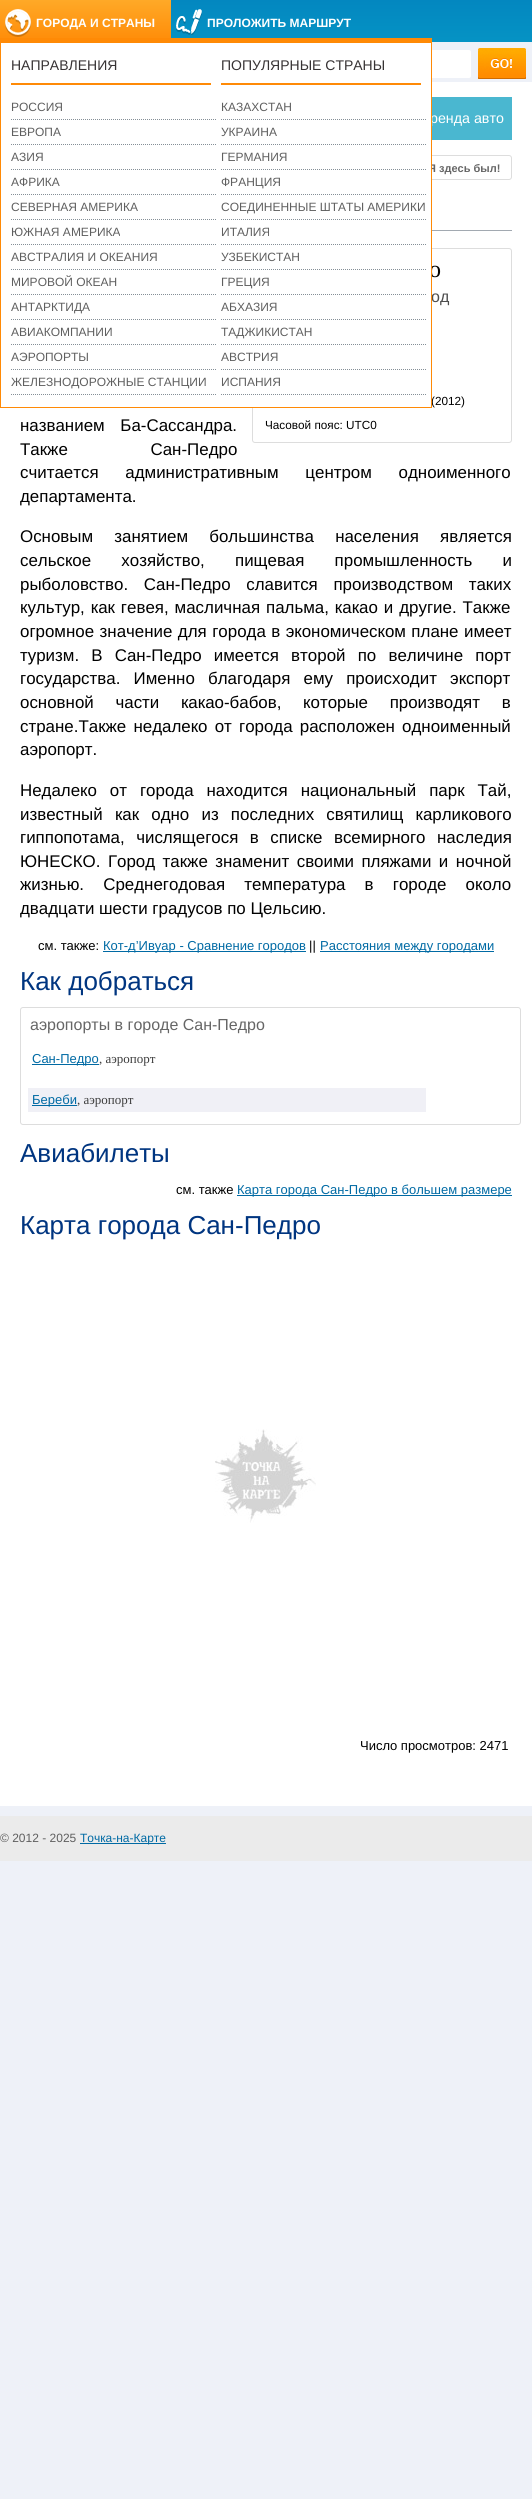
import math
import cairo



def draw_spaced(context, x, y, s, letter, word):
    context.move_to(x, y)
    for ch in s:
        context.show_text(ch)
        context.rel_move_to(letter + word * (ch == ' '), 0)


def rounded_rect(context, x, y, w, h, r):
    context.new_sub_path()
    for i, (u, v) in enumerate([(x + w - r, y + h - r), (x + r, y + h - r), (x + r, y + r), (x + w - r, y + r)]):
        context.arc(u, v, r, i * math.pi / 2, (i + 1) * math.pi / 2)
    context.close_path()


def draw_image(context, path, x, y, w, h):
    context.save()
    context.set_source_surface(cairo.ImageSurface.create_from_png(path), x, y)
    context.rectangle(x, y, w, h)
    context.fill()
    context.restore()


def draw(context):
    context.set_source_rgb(238 / 255, 241 / 255, 248 / 255)
    context.paint()
    gradient = cairo.LinearGradient(0, 0, 0, 42)
    gradient.add_color_stop_rgba(0, 3 / 255, 135 / 255, 192 / 255, 1)
    gradient.add_color_stop_rgba(1, 5 / 255, 147 / 255, 196 / 255, 1)
    context.set_source(gradient)
    context.rectangle(171, 0, 361, 42)
    context.fill()
    gradient = cairo.LinearGradient(0, 0, 0, 44)
    gradient.add_color_stop_rgba(0, 1, 169 / 255, 39 / 255, 1)
    gradient.add_color_stop_rgba(1, 1, 138 / 255, 6 / 255, 1)
    context.set_source(gradient)
    context.rectangle(0, 0, 171, 38)
    context.fill()
    draw_image(context, "images/1.png", 5, 9, 26, 28)
    context.set_source_rgb(1, 138 / 255, 6 / 255)
    context.rectangle(0, 38, 432, 5)
    context.fill()
    draw_image(context, "images/2.png", 176, 9, 26, 26)
    context.set_source_rgb(1, 1, 1)
    rounded_rect(context, 259, 50, 212, 28, 2)
    context.fill()
    draw_image(context, "images/3.png", 478, 48, 48, 31)
    context.rectangle(0, 82, 532, 1724)
    context.fill()
    context.set_source_rgb(74 / 255, 183 / 255, 208 / 255)
    context.rectangle(432, 97, 80, 43)
    context.fill()
    rounded_rect(context, 417.5, 155.5, 94, 24, 2.5)
    context.set_source_rgb(221 / 255, 221 / 255, 221 / 255)
    context.set_line_width(1)
    context.stroke()
    context.set_source_rgb(162 / 255, 169 / 255, 177 / 255)
    context.rectangle(432, 230, 80, 1)
    context.fill()
    rounded_rect(context, 252.5, 248.5, 259, 194, 2.5)
    context.set_source_rgb(221 / 255, 221 / 255, 221 / 255)
    context.stroke()
    context.set_source_rgb(0, 106 / 255, 164 / 255)
    context.rectangle(103, 951, 203, 1)
    context.fill()
    context.rectangle(320, 951, 174, 1)
    context.fill()
    rounded_rect(context, 20.5, 1007.5, 500, 117, 2.5)
    context.set_source_rgb(221 / 255, 221 / 255, 221 / 255)
    context.stroke()
    context.set_source_rgb(0, 106 / 255, 164 / 255)
    context.rectangle(32, 1064, 67, 1)
    context.fill()
    context.set_source_rgb(240 / 255, 240 / 255, 246 / 255)
    context.rectangle(28, 1088, 398, 24)
    context.fill()
    context.set_source_rgb(0, 106 / 255, 164 / 255)
    context.rectangle(32, 1105, 45, 1)
    context.fill()
    context.rectangle(237, 1195, 275, 1)
    context.fill()
    draw_image(context, "images/4.png", 215, 1429, 101, 94)
    context.set_source_rgb(235 / 255, 235 / 255, 235 / 255)
    context.rectangle(0, 1816, 532, 45)
    context.fill()
    context.set_source_rgb(0, 106 / 255, 164 / 255)
    context.rectangle(80, 1843, 86, 1)
    context.fill()
    context.select_font_face("Liberation Sans", cairo.FontSlant.NORMAL, cairo.FontWeight.BOLD)
    context.set_font_size(12)
    context.set_source_rgb(1, 1, 1)
    context.move_to(36, 27)
    context.show_text("ГОРОДА И СТРАНЫ")
    context.move_to(207, 27)
    context.show_text("ПРОЛОЖИТЬ МАРШРУТ")
    context.select_font_face("Liberation Sans")
    context.set_font_size(14.25)
    context.move_to(430, 123)
    context.show_text("ренда авто")
    context.select_font_face("Liberation Sans", cairo.FontSlant.NORMAL, cairo.FontWeight.BOLD)
    context.set_font_size(11)
    context.set_source_rgb(102 / 255, 102 / 255, 102 / 255)
    context.move_to(428, 172)
    context.show_text("Я здесь был!")
    context.select_font_face("Liberation Serif")
    context.set_font_size(24)
    context.set_source_rgb(0, 0, 0)
    context.move_to(429, 277)
    context.show_text("о")
    context.set_source_rgb(1, 1, 1)
    context.rectangle(1, 43, 430, 364)
    context.fill()
    context.select_font_face("Liberation Sans")
    context.set_font_size(12)
    context.set_source_rgb(95 / 255, 95 / 255, 95 / 255)
    context.move_to(221, 386)
    context.show_text("ИСПАНИЯ")
    context.new_path()
    context.move_to(221, 394.5)
    context.line_to(426, 394.5)
    context.set_source_rgb(133 / 255, 143 / 255, 151 / 255)
    context.set_dash([1, 1])
    context.stroke()
    context.set_source_rgb(95 / 255, 95 / 255, 95 / 255)
    context.move_to(221, 361)
    context.show_text("АВСТРИЯ")
    context.new_path()
    context.move_to(221, 369.5)
    context.line_to(426, 369.5)
    context.set_source_rgb(133 / 255, 143 / 255, 151 / 255)
    context.stroke()
    context.set_source_rgb(95 / 255, 95 / 255, 95 / 255)
    context.move_to(221, 336)
    context.show_text("ТАДЖИКИСТАН")
    context.new_path()
    context.move_to(221, 344.5)
    context.line_to(426, 344.5)
    context.set_source_rgb(133 / 255, 143 / 255, 151 / 255)
    context.stroke()
    context.set_source_rgb(95 / 255, 95 / 255, 95 / 255)
    context.move_to(221, 311)
    context.show_text("АБХАЗИЯ")
    context.new_path()
    context.move_to(221, 319.5)
    context.line_to(426, 319.5)
    context.set_source_rgb(133 / 255, 143 / 255, 151 / 255)
    context.stroke()
    context.set_source_rgb(95 / 255, 95 / 255, 95 / 255)
    context.move_to(221, 286)
    context.show_text("ГРЕЦИЯ")
    context.new_path()
    context.move_to(221, 294.5)
    context.line_to(426, 294.5)
    context.set_source_rgb(133 / 255, 143 / 255, 151 / 255)
    context.stroke()
    context.set_source_rgb(95 / 255, 95 / 255, 95 / 255)
    context.move_to(221, 261)
    context.show_text("УЗБЕКИСТАН")
    context.new_path()
    context.move_to(221, 269.5)
    context.line_to(426, 269.5)
    context.set_source_rgb(133 / 255, 143 / 255, 151 / 255)
    context.stroke()
    context.set_source_rgb(95 / 255, 95 / 255, 95 / 255)
    context.move_to(221, 236)
    context.show_text("ИТАЛИЯ")
    context.new_path()
    context.move_to(221, 244.5)
    context.line_to(426, 244.5)
    context.set_source_rgb(133 / 255, 143 / 255, 151 / 255)
    context.stroke()
    context.set_source_rgb(95 / 255, 95 / 255, 95 / 255)
    context.move_to(221, 211)
    context.show_text("СОЕДИНЕННЫЕ ШТАТЫ АМЕРИКИ")
    context.new_path()
    context.move_to(221, 219.5)
    context.line_to(426, 219.5)
    context.set_source_rgb(133 / 255, 143 / 255, 151 / 255)
    context.stroke()
    context.set_source_rgb(95 / 255, 95 / 255, 95 / 255)
    context.move_to(221, 186)
    context.show_text("ФРАНЦИЯ")
    context.new_path()
    context.move_to(221, 194.5)
    context.line_to(426, 194.5)
    context.set_source_rgb(133 / 255, 143 / 255, 151 / 255)
    context.stroke()
    context.set_source_rgb(95 / 255, 95 / 255, 95 / 255)
    context.move_to(221, 161)
    context.show_text("ГЕРМАНИЯ")
    context.new_path()
    context.move_to(221, 169.5)
    context.line_to(426, 169.5)
    context.set_source_rgb(133 / 255, 143 / 255, 151 / 255)
    context.stroke()
    context.set_source_rgb(95 / 255, 95 / 255, 95 / 255)
    context.move_to(221, 136)
    context.show_text("УКРАИНА")
    context.new_path()
    context.move_to(221, 144.5)
    context.line_to(426, 144.5)
    context.set_source_rgb(133 / 255, 143 / 255, 151 / 255)
    context.stroke()
    context.set_source_rgb(95 / 255, 95 / 255, 95 / 255)
    context.move_to(221, 111)
    context.show_text("КАЗАХСТАН")
    context.new_path()
    context.move_to(221, 119.5)
    context.line_to(426, 119.5)
    context.set_source_rgb(133 / 255, 143 / 255, 151 / 255)
    context.stroke()
    context.set_source_rgb(95 / 255, 95 / 255, 95 / 255)
    context.move_to(11, 386)
    context.show_text("ЖЕЛЕЗНОДОРОЖНЫЕ СТАНЦИИ")
    context.new_path()
    context.move_to(11, 394.5)
    context.line_to(216, 394.5)
    context.set_source_rgb(133 / 255, 143 / 255, 151 / 255)
    context.stroke()
    context.set_source_rgb(95 / 255, 95 / 255, 95 / 255)
    context.move_to(11, 361)
    context.show_text("АЭРОПОРТЫ")
    context.new_path()
    context.move_to(11, 369.5)
    context.line_to(216, 369.5)
    context.set_source_rgb(133 / 255, 143 / 255, 151 / 255)
    context.stroke()
    context.set_source_rgb(95 / 255, 95 / 255, 95 / 255)
    context.move_to(11, 336)
    context.show_text("АВИАКОМПАНИИ")
    context.new_path()
    context.move_to(11, 344.5)
    context.line_to(216, 344.5)
    context.set_source_rgb(133 / 255, 143 / 255, 151 / 255)
    context.stroke()
    context.set_source_rgb(95 / 255, 95 / 255, 95 / 255)
    context.move_to(11, 311)
    context.show_text("АНТАРКТИДА")
    context.new_path()
    context.move_to(11, 319.5)
    context.line_to(216, 319.5)
    context.set_source_rgb(133 / 255, 143 / 255, 151 / 255)
    context.stroke()
    context.set_source_rgb(95 / 255, 95 / 255, 95 / 255)
    context.move_to(11, 286)
    context.show_text("МИРОВОЙ ОКЕАН")
    context.new_path()
    context.move_to(11, 294.5)
    context.line_to(216, 294.5)
    context.set_source_rgb(133 / 255, 143 / 255, 151 / 255)
    context.stroke()
    context.set_source_rgb(95 / 255, 95 / 255, 95 / 255)
    context.move_to(11, 261)
    context.show_text("АВСТРАЛИЯ И ОКЕАНИЯ")
    context.new_path()
    context.move_to(11, 269.5)
    context.line_to(216, 269.5)
    context.set_source_rgb(133 / 255, 143 / 255, 151 / 255)
    context.stroke()
    context.set_source_rgb(95 / 255, 95 / 255, 95 / 255)
    context.move_to(11, 236)
    context.show_text("ЮЖНАЯ АМЕРИКА")
    context.new_path()
    context.move_to(11, 244.5)
    context.line_to(216, 244.5)
    context.set_source_rgb(133 / 255, 143 / 255, 151 / 255)
    context.stroke()
    context.set_source_rgb(95 / 255, 95 / 255, 95 / 255)
    context.move_to(11, 211)
    context.show_text("СЕВЕРНАЯ АМЕРИКА")
    context.new_path()
    context.move_to(11, 219.5)
    context.line_to(216, 219.5)
    context.set_source_rgb(133 / 255, 143 / 255, 151 / 255)
    context.stroke()
    context.set_source_rgb(95 / 255, 95 / 255, 95 / 255)
    context.move_to(11, 186)
    context.show_text("АФРИКА")
    context.new_path()
    context.move_to(11, 194.5)
    context.line_to(216, 194.5)
    context.set_source_rgb(133 / 255, 143 / 255, 151 / 255)
    context.stroke()
    context.set_source_rgb(95 / 255, 95 / 255, 95 / 255)
    context.move_to(11, 161)
    context.show_text("АЗИЯ")
    context.new_path()
    context.move_to(11, 169.5)
    context.line_to(216, 169.5)
    context.set_source_rgb(133 / 255, 143 / 255, 151 / 255)
    context.stroke()
    context.set_source_rgb(95 / 255, 95 / 255, 95 / 255)
    context.move_to(11, 136)
    context.show_text("ЕВРОПА")
    context.new_path()
    context.move_to(11, 144.5)
    context.line_to(216, 144.5)
    context.set_source_rgb(133 / 255, 143 / 255, 151 / 255)
    context.stroke()
    context.set_source_rgb(95 / 255, 95 / 255, 95 / 255)
    context.move_to(11, 111)
    context.show_text("РОССИЯ")
    context.new_path()
    context.move_to(11, 119.5)
    context.line_to(216, 119.5)
    context.set_source_rgb(133 / 255, 143 / 255, 151 / 255)
    context.stroke()
    context.set_font_size(14)
    context.set_source_rgb(55 / 255, 51 / 255, 52 / 255)
    context.move_to(221, 70)
    context.show_text("ПОПУЛЯРНЫЕ СТРАНЫ")
    context.set_source_rgb(1, 138 / 255, 6 / 255)
    context.rectangle(221, 83, 200, 2)
    context.fill()
    context.set_source_rgb(55 / 255, 51 / 255, 52 / 255)
    context.move_to(11, 70)
    context.show_text("НАПРАВЛЕНИЯ")
    context.set_source_rgb(1, 138 / 255, 6 / 255)
    context.rectangle(11, 83, 200, 2)
    context.fill()
    context.set_font_size(16)
    context.set_source_rgb(77 / 255, 77 / 255, 77 / 255)
    context.move_to(431, 302)
    context.show_text("од")
    context.set_font_size(11.75)
    context.set_source_rgb(0, 0, 0)
    context.move_to(431, 405)
    context.show_text("(2012)")
    context.set_source_rgb(1, 138 / 255, 6 / 255)
    context.rectangle(431, 38, 1, 370)
    context.fill()
    context.rectangle(0, 407, 432, 1)
    context.fill()
    context.rectangle(0, 38, 1, 370)
    context.fill()
    context.set_source_rgb(0, 0, 0)
    context.move_to(265, 429)
    context.show_text("Часовой пояс: UTC0")
    context.set_font_size(16.9)
    draw_spaced(context, 20, 431, "названием Ба-Сассандра.", 0, 11)
    draw_spaced(context, 20, 455, "Также Сан-Педро", 0, 78)
    draw_spaced(context, 20, 478, "считается административным центром одноименного", 0, 22)
    context.move_to(20, 502)
    context.show_text("департамента.")
    draw_spaced(context, 20, 542, "Основым занятием большинства населения является", 0, 16.5)
    draw_spaced(context, 20, 566, "сельское хозяйство, пищевая промышленность и", 0, 25.5)
    draw_spaced(context, 20, 590, "рыболовство. Сан-Педро славится производством таких", 0, 11)
    draw_spaced(context, 20, 613, "культур, как гевея, масличная пальма, какао и другие. Также", 0, 1.25)
    draw_spaced(context, 20, 637, "огромное значение для города в экономическом плане имеет", 0, 0.75)
    draw_spaced(context, 20, 661, "туризм. В Сан-Педро имеется второй по величине порт", 0, 7.5)
    draw_spaced(context, 20, 684, "государства. Именно благодаря ему происходит экспорт", 0, 8.5)
    draw_spaced(context, 20, 708, "основной части какао-бабов, которые производят в", 0, 17)
    draw_spaced(context, 20, 732, "стране.Также недалеко от города расположен одноименный", 0, 2.5)
    context.move_to(20, 755)
    context.show_text("аэропорт.")
    draw_spaced(context, 20, 796, "Недалеко от города находится национальный парк Тай,", 0, 8.25)
    draw_spaced(context, 20, 820, "известный как одно из последних святилищ карликового", 0, 7.5)
    draw_spaced(context, 20, 843, "гиппопотама, числящегося в списке всемирного наследия", 0, 6.75)
    draw_spaced(context, 20, 867, "ЮНЕСКО. Город также знаменит своими пляжами и ночной", 0, 2.75)
    draw_spaced(context, 20, 890, "жизнью. Среднегодовая температура в городе около", 0, 14.5)
    context.move_to(20, 914)
    context.show_text("двадцати шести градусов по Цельсию.")
    context.set_font_size(13)
    context.move_to(38, 950)
    context.show_text("см. также:")
    context.set_source_rgb(0, 106 / 255, 164 / 255)
    context.move_to(103, 950)
    context.show_text("Кот-д’Ивуар - Сравнение городов")
    context.set_source_rgb(0, 0, 0)
    context.move_to(309, 950)
    context.show_text("||")
    context.set_source_rgb(0, 106 / 255, 164 / 255)
    context.move_to(320, 950)
    context.show_text("Расстояния между городами")
    context.set_font_size(26)
    context.set_source_rgb(0, 53 / 255, 128 / 255)
    context.move_to(20, 990)
    context.show_text("Как добраться")
    context.set_font_size(16)
    context.set_source_rgb(102 / 255, 102 / 255, 102 / 255)
    context.move_to(30, 1030)
    context.show_text("аэропорты в городе Сан-Педро")
    context.set_font_size(13)
    context.set_source_rgb(0, 106 / 255, 164 / 255)
    context.move_to(32, 1063)
    context.show_text("Сан-Педро")
    context.select_font_face("Liberation Serif")
    context.set_source_rgb(61 / 255, 61 / 255, 61 / 255)
    context.move_to(99, 1063)
    context.show_text(", аэропорт")
    context.select_font_face("Liberation Sans")
    context.set_source_rgb(0, 106 / 255, 164 / 255)
    context.move_to(32, 1104)
    context.show_text("Береби")
    context.select_font_face("Liberation Serif")
    context.set_source_rgb(61 / 255, 61 / 255, 61 / 255)
    context.move_to(77, 1104)
    context.show_text(", аэропорт")
    context.select_font_face("Liberation Sans")
    context.set_font_size(26)
    context.set_source_rgb(0, 53 / 255, 128 / 255)
    context.move_to(20, 1162)
    context.show_text("Авиабилеты")
    context.set_font_size(13)
    context.set_source_rgb(0, 0, 0)
    context.move_to(176, 1194)
    context.show_text("см. также")
    context.set_source_rgb(0, 106 / 255, 164 / 255)
    context.move_to(237, 1194)
    context.show_text("Карта города Сан-Педро в большем размере")
    context.set_font_size(26)
    context.set_source_rgb(0, 53 / 255, 128 / 255)
    context.move_to(20, 1234)
    context.show_text("Карта города Сан-Педро")
    context.set_font_size(13)
    context.set_source_rgb(0, 0, 0)
    context.move_to(360, 1750)
    context.show_text("Число просмотров: 2471")
    context.set_font_size(12)
    context.set_source_rgb(95 / 255, 95 / 255, 95 / 255)
    context.move_to(0, 1842)
    context.show_text("© 2012 - 2025")
    context.set_source_rgb(0, 106 / 255, 164 / 255)
    context.move_to(80, 1842)
    context.show_text("Точка-на-Карте")


surface = cairo.ImageSurface(cairo.Format.RGB24, 532, 2499)
context = cairo.Context(surface)
options = cairo.FontOptions()
options.set_hint_metrics(cairo.HintMetrics.OFF)
options.set_hint_style(cairo.HintStyle.NONE)
context.set_font_options(options)
context.set_miter_limit(4)
draw(context)
surface.write_to_png("out.png")
